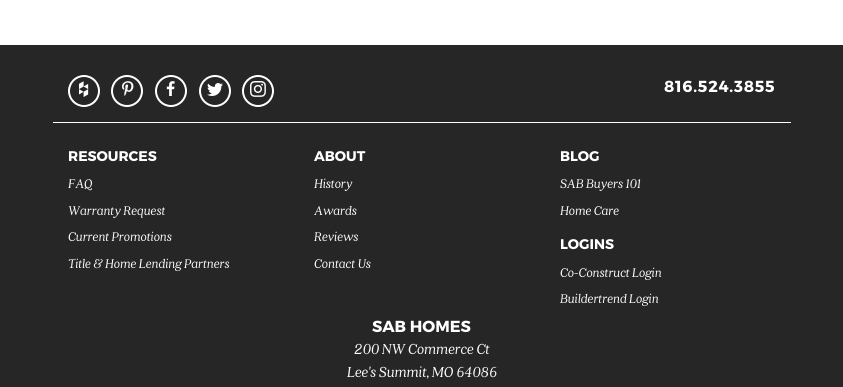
import math
import cairo



def draw_spaced(context, x, y, s, letter, word):
    context.move_to(x, y)
    for ch in s:
        context.show_text(ch)
        context.rel_move_to(letter + word * (ch == ' '), 0)


def draw_image(context, path, x, y, w, h):
    context.save()
    context.set_source_surface(cairo.ImageSurface.create_from_png(path), x, y)
    context.rectangle(x, y, w, h)
    context.fill()
    context.restore()


def draw(context):
    context.set_source_rgb(1, 1, 1)
    context.paint()
    context.set_source_rgb(38 / 255, 38 / 255, 38 / 255)
    context.rectangle(0, 45, 843, 342)
    context.fill()
    context.set_source_rgb(1, 1, 1)
    context.rectangle(53, 122, 738, 1)
    context.fill()
    context.arc(84, 91, 15, 0, 2 * math.pi)
    context.stroke()
    draw_image(context, "images/1.png", 79, 81, 10, 16)
    context.arc(127, 91, 15, 0, 2 * math.pi)
    context.stroke()
    draw_image(context, "images/2.png", 122, 81, 12, 15)
    context.arc(171, 91, 15, 0, 2 * math.pi)
    context.stroke()
    draw_image(context, "images/3.png", 166, 81, 9, 15)
    context.arc(215, 91, 15, 0, 2 * math.pi)
    context.stroke()
    draw_image(context, "images/4.png", 207, 83, 16, 13)
    context.arc(258, 91, 15, 0, 2 * math.pi)
    context.stroke()
    draw_image(context, "images/5.png", 250, 81, 16, 16)
    context.select_font_face("Montserrat", cairo.FontSlant.NORMAL, cairo.FontWeight.BOLD)
    context.set_font_size(16)
    draw_spaced(context, 664, 92, "816.524.3855", 0.75, 0)
    context.set_font_size(14)
    context.move_to(68, 161)
    context.show_text("RESOURCES")
    context.select_font_face("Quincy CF", cairo.FontSlant.ITALIC)
    context.move_to(68, 188)
    context.show_text("FAQ")
    context.move_to(68, 215)
    context.show_text("Warranty Request")
    context.move_to(68, 241)
    context.show_text("Current Promotions")
    context.move_to(68, 268)
    context.show_text("Title & Home Lending Partners")
    context.select_font_face("Montserrat", cairo.FontSlant.NORMAL, cairo.FontWeight.BOLD)
    context.move_to(314, 161)
    context.show_text("ABOUT")
    context.select_font_face("Quincy CF", cairo.FontSlant.ITALIC)
    context.move_to(314, 188)
    context.show_text("History")
    context.move_to(314, 215)
    context.show_text("Awards")
    context.move_to(314, 241)
    context.show_text("Reviews")
    context.move_to(314, 268)
    context.show_text("Contact Us")
    context.select_font_face("Montserrat", cairo.FontSlant.NORMAL, cairo.FontWeight.BOLD)
    context.move_to(560, 161)
    context.show_text("BLOG")
    context.select_font_face("Quincy CF", cairo.FontSlant.ITALIC)
    context.move_to(560, 188)
    context.show_text("SAB Buyers 101")
    context.move_to(560, 215)
    context.show_text("Home Care")
    context.select_font_face("Montserrat", cairo.FontSlant.NORMAL, cairo.FontWeight.BOLD)
    context.move_to(560, 249)
    context.show_text("LOGINS")
    context.select_font_face("Quincy CF", cairo.FontSlant.ITALIC)
    context.move_to(560, 277)
    context.show_text("Co-Construct Login")
    context.move_to(560, 303)
    context.show_text("Buildertrend Login")
    context.select_font_face("Montserrat", cairo.FontSlant.NORMAL, cairo.FontWeight.BOLD)
    context.set_font_size(16)
    context.move_to(372, 332)
    context.show_text("SAB HOMES")
    context.select_font_face("Quincy CF", cairo.FontSlant.ITALIC)
    context.move_to(354, 354)
    context.show_text("200 NW Commerce Ct")
    context.move_to(347, 377)
    context.show_text("Lee's Summit, MO 64086")


surface = cairo.ImageSurface(cairo.Format.RGB24, 843, 387)
context = cairo.Context(surface)
options = cairo.FontOptions()
options.set_hint_metrics(cairo.HintMetrics.OFF)
options.set_hint_style(cairo.HintStyle.NONE)
context.set_font_options(options)
context.set_miter_limit(4)
draw(context)
surface.write_to_png("out.png")
